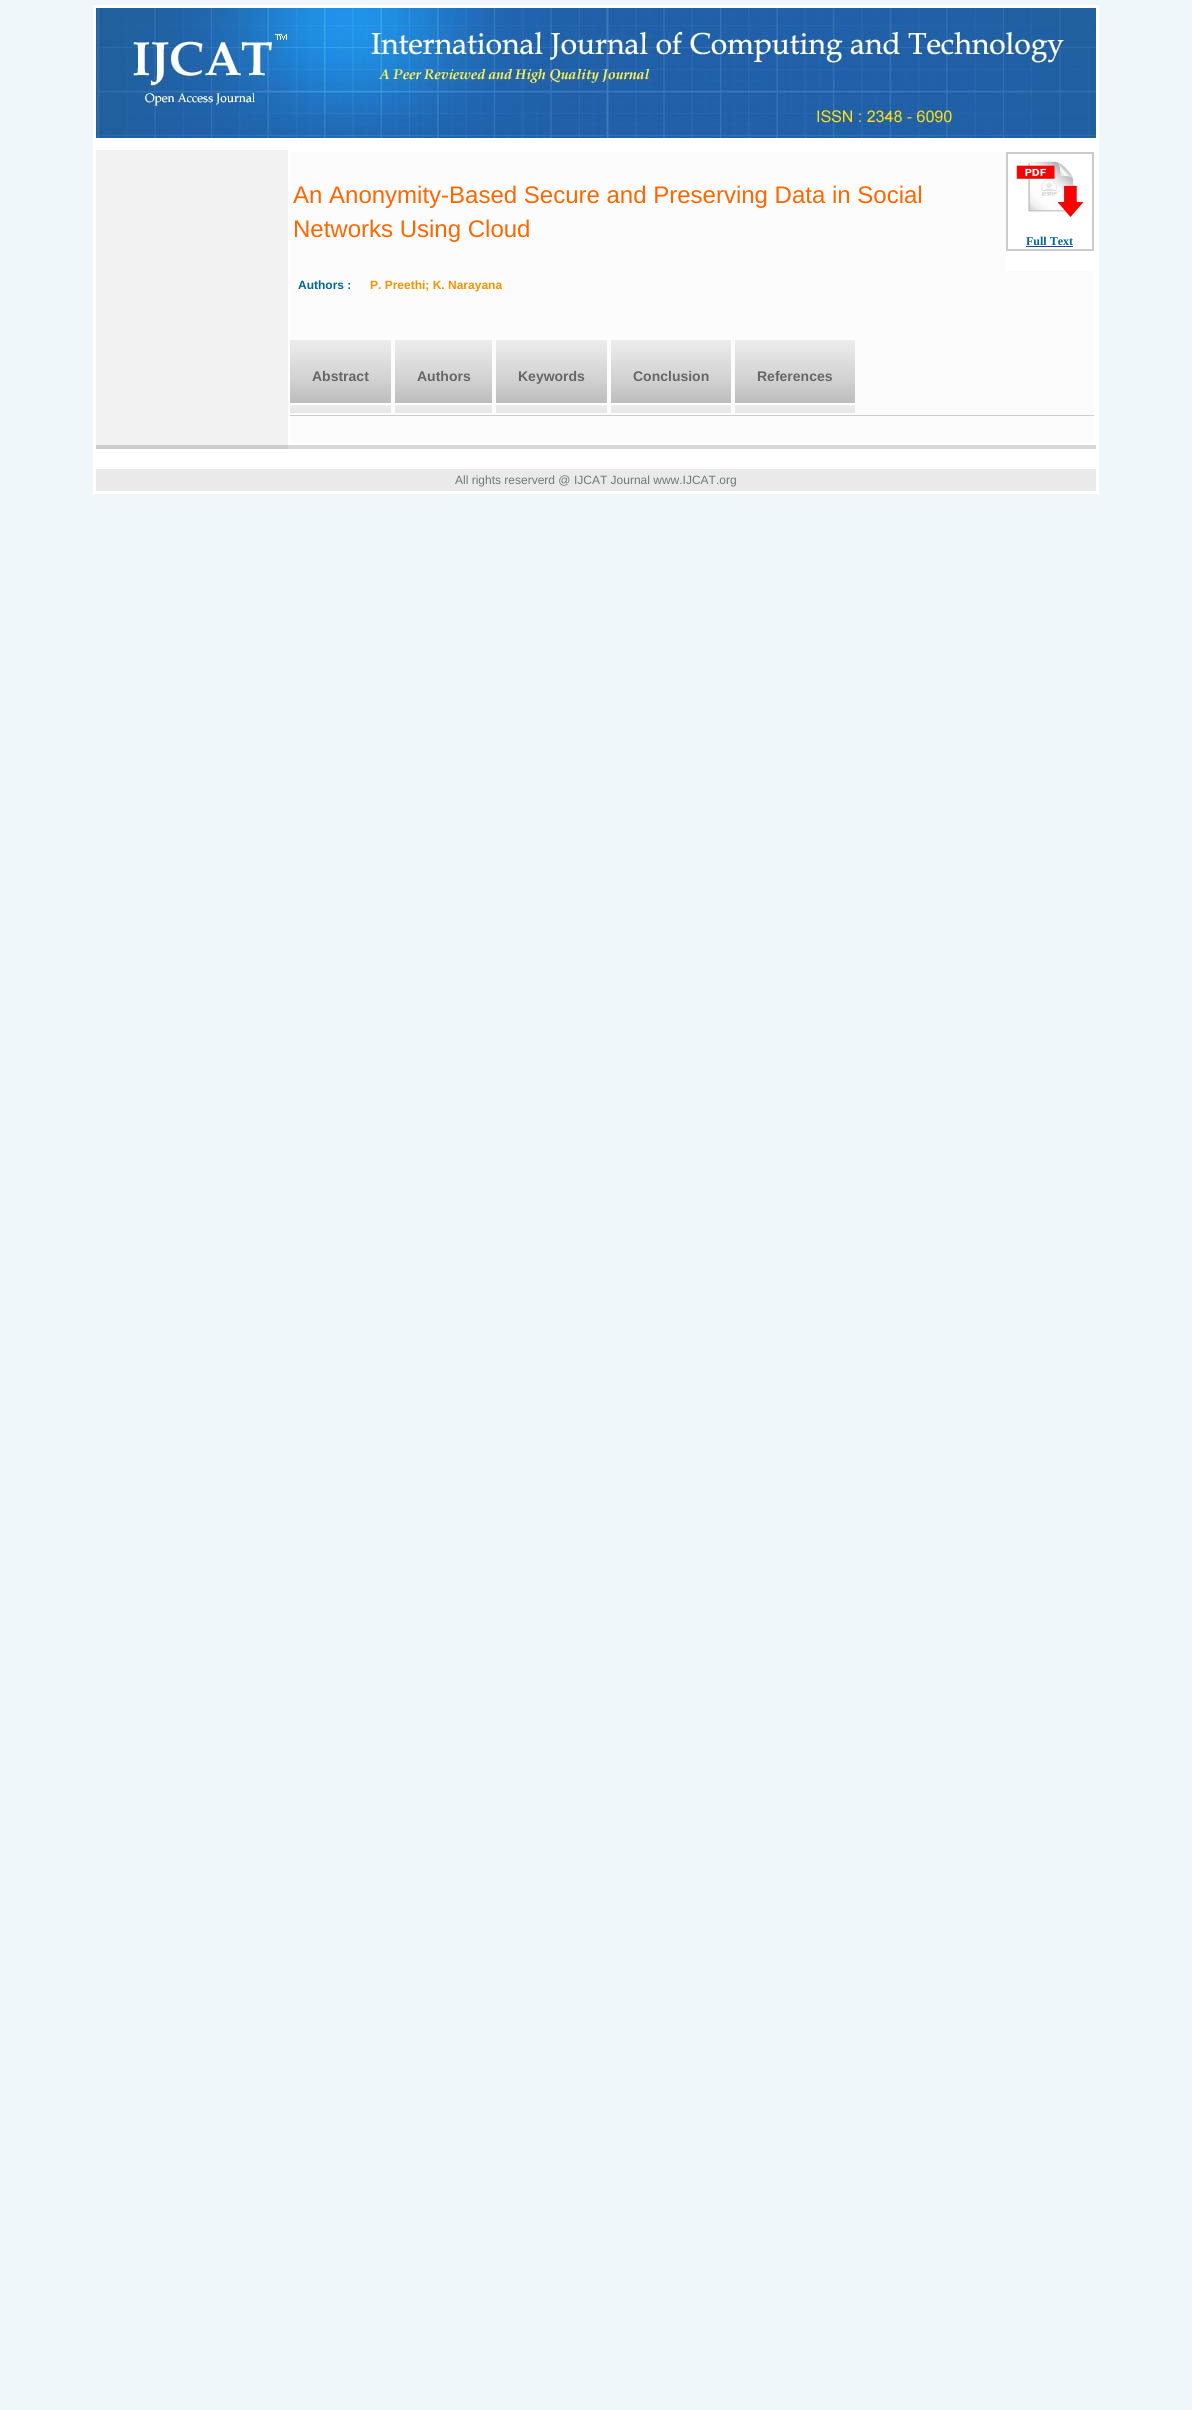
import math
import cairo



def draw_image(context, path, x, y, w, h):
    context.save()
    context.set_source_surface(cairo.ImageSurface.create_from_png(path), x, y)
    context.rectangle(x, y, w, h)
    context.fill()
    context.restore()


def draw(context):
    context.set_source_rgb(240 / 255, 247 / 255, 251 / 255)
    context.paint()
    context.set_source_rgb(1, 1, 1)
    context.rectangle(93, 5, 1006, 489)
    context.fill()
    draw_image(context, "images/1.png", 96, 8, 1000, 130)
    context.set_source_rgb(242 / 255, 242 / 255, 242 / 255)
    context.rectangle(96, 150, 192, 295)
    context.fill()
    context.set_source_rgb(252 / 255, 252 / 255, 252 / 255)
    context.rectangle(290, 152, 804, 291)
    context.fill()
    context.set_source_rgb(1, 1, 1)
    context.rectangle(1006, 154, 88, 117)
    context.fill()
    context.rectangle(1006.5, 152.5, 87, 98)
    context.set_source_rgb(204 / 255, 204 / 255, 204 / 255)
    context.set_line_width(1)
    context.stroke()
    context.rectangle(1007.5, 153.5, 85, 96)
    context.stroke()
    draw_image(context, "images/2.png", 1016, 161, 69, 57)
    context.set_source_rgb(34 / 255, 68 / 255, 153 / 255)
    context.rectangle(1026, 246, 47, 1)
    context.fill()
    context.set_source_rgb(204 / 255, 204 / 255, 204 / 255)
    context.rectangle(290, 415, 804, 1)
    context.fill()
    draw_image(context, "images/3.png", 290, 340, 101, 73)
    draw_image(context, "images/4.png", 395, 340, 97, 73)
    draw_image(context, "images/5.png", 496, 340, 111, 73)
    draw_image(context, "images/6.png", 611, 340, 120, 73)
    draw_image(context, "images/6.png", 735, 340, 120, 73)
    context.rectangle(96, 445, 192, 4)
    context.fill()
    context.set_source_rgb(216 / 255, 216 / 255, 216 / 255)
    context.rectangle(288, 445, 808, 4)
    context.fill()
    context.set_source_rgb(234 / 255, 234 / 255, 234 / 255)
    context.rectangle(96, 469, 1000, 22)
    context.fill()
    context.select_font_face("Liberation Sans")
    context.set_font_size(24)
    context.set_source_rgb(1, 102 / 255, 0)
    context.move_to(293, 203)
    context.show_text("An Anonymity-Based Secure and Preserving Data in Social")
    context.move_to(293, 237)
    context.show_text("Networks Using Cloud")
    context.select_font_face("Liberation Serif", cairo.FontSlant.NORMAL, cairo.FontWeight.BOLD)
    context.set_font_size(12)
    context.set_source_rgb(0, 102 / 255, 153 / 255)
    context.move_to(1026, 245)
    context.show_text("Full Text")
    context.select_font_face("Liberation Sans", cairo.FontSlant.NORMAL, cairo.FontWeight.BOLD)
    context.move_to(298, 289)
    context.show_text("Authors :")
    context.set_source_rgb(244 / 255, 147 / 255, 0)
    context.move_to(370, 289)
    context.show_text("P. Preethi; K. Narayana")
    context.set_font_size(14)
    context.set_source_rgb(102 / 255, 102 / 255, 102 / 255)
    context.move_to(312, 381)
    context.show_text("Abstract")
    context.move_to(417, 381)
    context.show_text("Authors")
    context.move_to(518, 381)
    context.show_text("Keywords")
    context.move_to(633, 381)
    context.show_text("Conclusion")
    context.move_to(757, 381)
    context.show_text("References")
    context.select_font_face("Liberation Sans")
    context.set_font_size(12)
    context.set_source_rgb(111 / 255, 120 / 255, 119 / 255)
    context.move_to(455, 484)
    context.show_text("All rights reserverd @ IJCAT Journal www.IJCAT.org")


surface = cairo.ImageSurface(cairo.Format.RGB24, 1192, 2410)
context = cairo.Context(surface)
options = cairo.FontOptions()
options.set_hint_metrics(cairo.HintMetrics.OFF)
options.set_hint_style(cairo.HintStyle.NONE)
context.set_font_options(options)
context.set_miter_limit(4)
draw(context)
surface.write_to_png("out.png")
